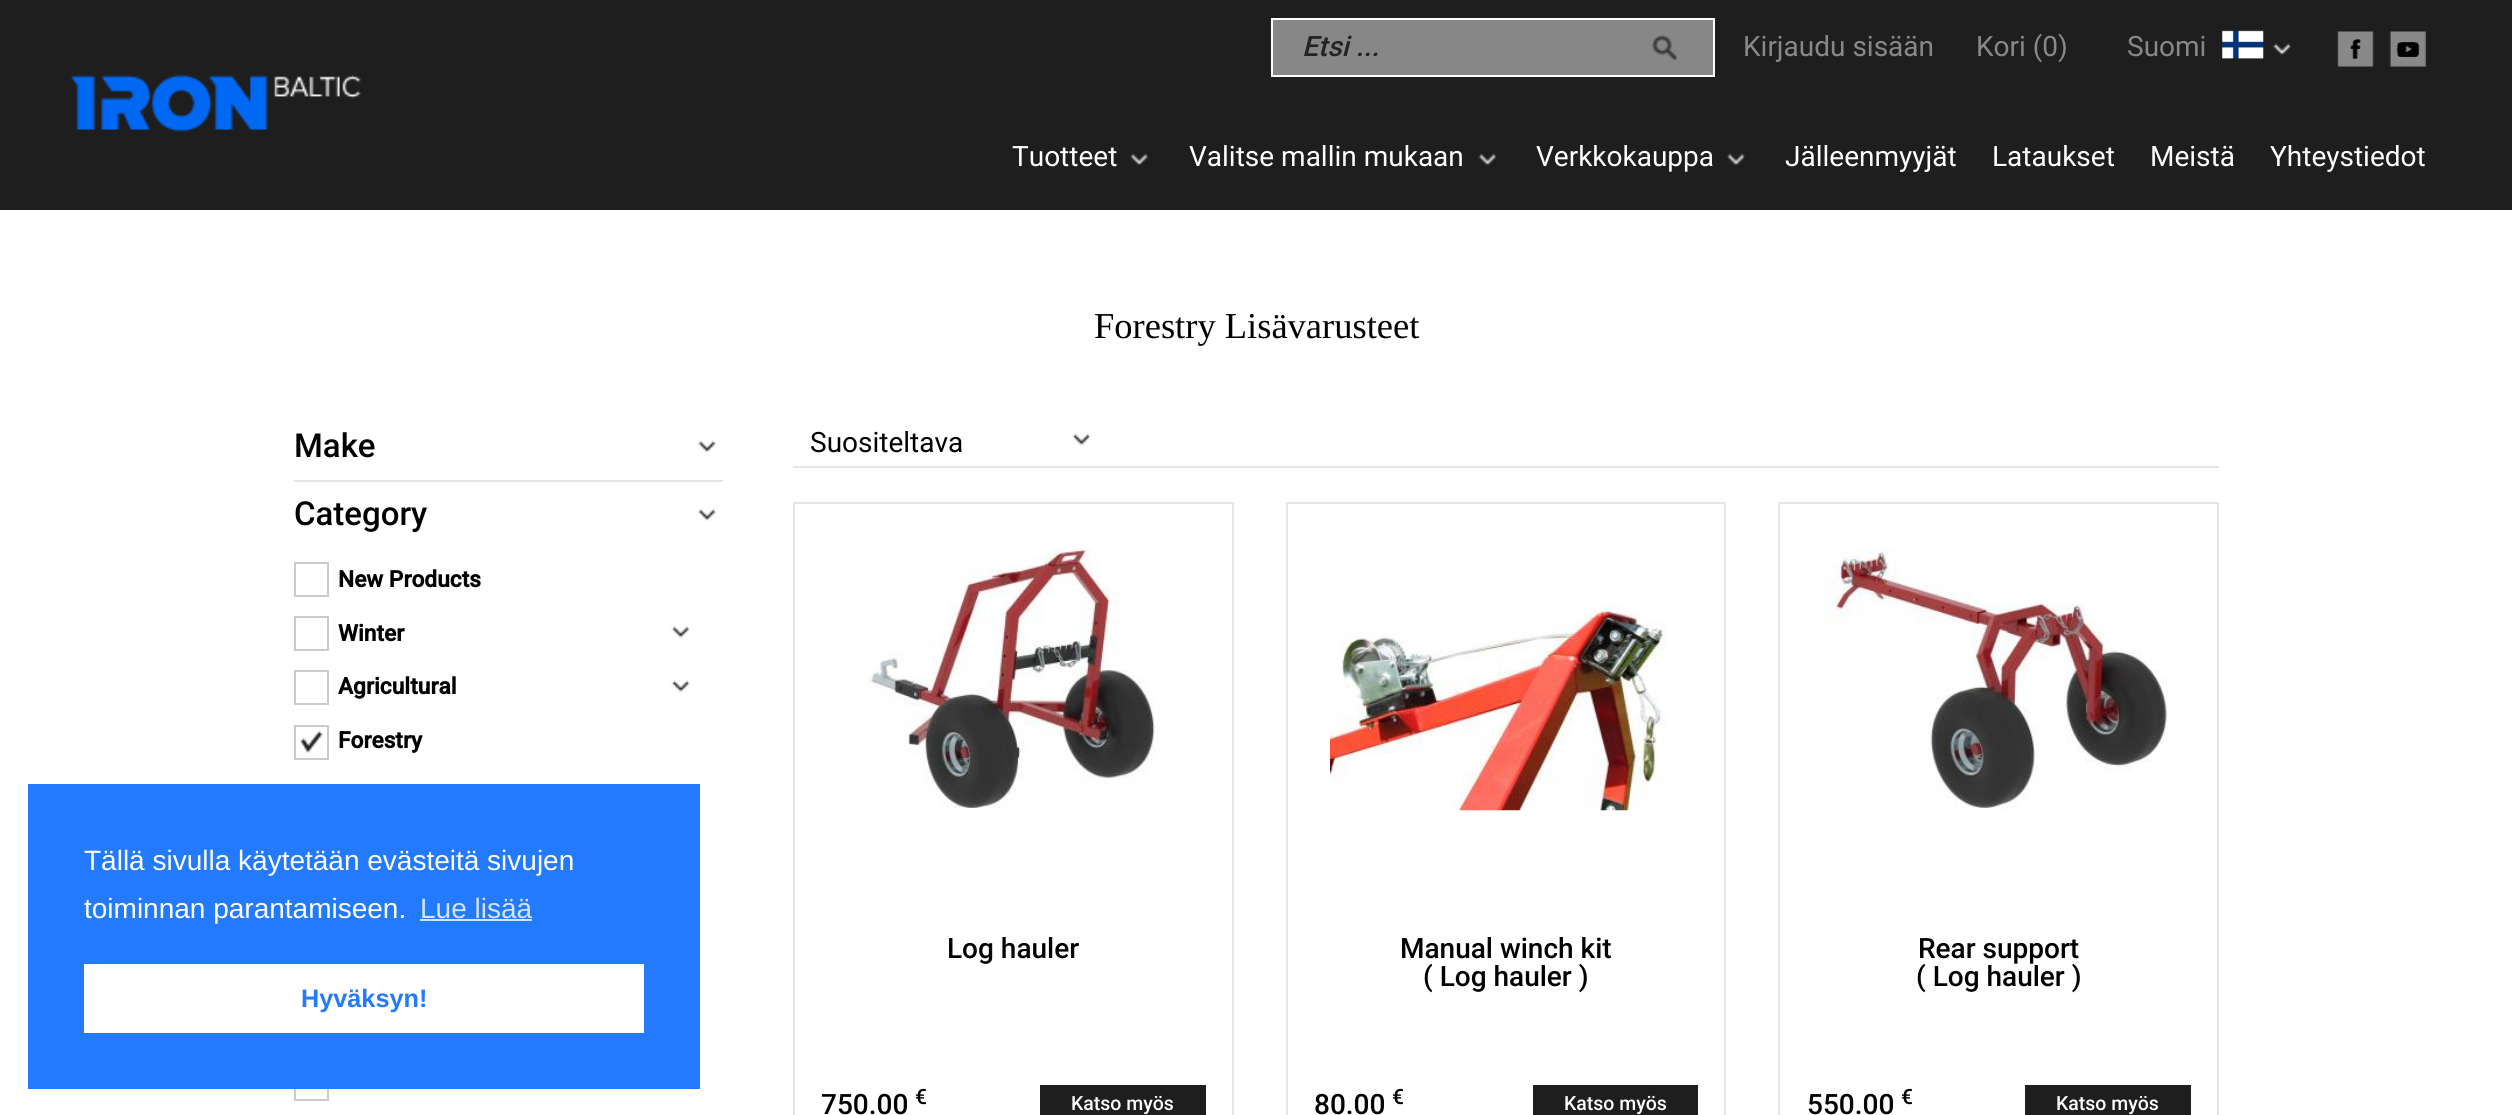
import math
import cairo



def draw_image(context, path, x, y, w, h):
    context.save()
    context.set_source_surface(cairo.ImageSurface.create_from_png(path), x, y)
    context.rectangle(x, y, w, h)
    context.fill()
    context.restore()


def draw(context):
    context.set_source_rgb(30 / 255, 30 / 255, 30 / 255)
    context.paint()
    draw_image(context, "images/1.png", 71, 74, 290, 58)
    context.set_source_rgb(135 / 255, 135 / 255, 135 / 255)
    context.rectangle(1272, 19, 442, 57)
    context.fill_preserve()
    context.set_source_rgb(1, 1, 1)
    context.stroke()
    draw_image(context, "images/2.png", 1651, 35, 26, 25)
    draw_image(context, "images/3.png", 2222, 30, 42, 29)
    draw_image(context, "images/4.png", 2272, 43, 19, 12)
    draw_image(context, "images/5.png", 2337, 31, 37, 36)
    draw_image(context, "images/6.png", 2389, 31, 37, 36)
    draw_image(context, "images/7.png", 1130, 153, 19, 12)
    draw_image(context, "images/8.png", 1478, 153, 19, 12)
    draw_image(context, "images/9.png", 1727, 153, 18, 12)
    context.rectangle(0, 210, 2512, 905)
    context.fill()
    draw_image(context, "images/10.png", 697, 440, 20, 12)
    context.set_source_rgb(229 / 255, 229 / 255, 229 / 255)
    context.rectangle(294, 480, 429, 2)
    context.fill()
    draw_image(context, "images/11.png", 698, 508, 19, 13)
    context.rectangle(295, 563, 33, 33)
    context.set_source_rgb(203 / 255, 203 / 255, 203 / 255)
    context.stroke()
    context.rectangle(295, 617, 33, 33)
    context.stroke()
    draw_image(context, "images/12.png", 671, 626, 19, 12)
    context.rectangle(295, 671, 33, 33)
    context.stroke()
    draw_image(context, "images/13.png", 671, 680, 19, 12)
    draw_image(context, "images/14.png", 300, 731, 23, 22)
    context.rectangle(295, 726, 33, 33)
    context.stroke()
    context.rectangle(295, 1067, 33, 33)
    context.stroke()
    draw_image(context, "images/15.png", 1072, 433, 19, 12)
    context.set_source_rgb(229 / 255, 229 / 255, 229 / 255)
    context.rectangle(793, 466, 1426, 2)
    context.fill()
    context.rectangle(794, 503, 439, 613)
    context.stroke()
    draw_image(context, "images/16.png", 868, 547, 287, 262)
    context.set_source_rgb(30 / 255, 30 / 255, 30 / 255)
    context.rectangle(1040, 1085, 166, 30)
    context.fill()
    context.rectangle(1287, 503, 438, 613)
    context.set_source_rgb(229 / 255, 229 / 255, 229 / 255)
    context.stroke()
    draw_image(context, "images/17.png", 1330, 604, 336, 207)
    context.set_source_rgb(30 / 255, 30 / 255, 30 / 255)
    context.rectangle(1533, 1085, 165, 30)
    context.fill()
    context.rectangle(1779, 503, 439, 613)
    context.set_source_rgb(229 / 255, 229 / 255, 229 / 255)
    context.stroke()
    draw_image(context, "images/18.png", 1823, 548, 346, 261)
    context.set_source_rgb(30 / 255, 30 / 255, 30 / 255)
    context.rectangle(2025, 1085, 166, 30)
    context.fill()
    context.set_source_rgb(35 / 255, 122 / 255, 252 / 255)
    context.rectangle(28, 784, 672, 305)
    context.fill()
    context.set_source_rgb(211 / 255, 228 / 255, 254 / 255)
    context.rectangle(420, 919, 112, 2)
    context.fill()
    context.set_source_rgb(1, 1, 1)
    context.rectangle(84, 964, 560, 69)
    context.fill()
    context.select_font_face("Roboto Medium", cairo.FontSlant.ITALIC)
    context.set_font_size(28)
    context.set_source_rgb(35 / 255, 35 / 255, 35 / 255)
    context.move_to(1302, 56)
    context.show_text("Etsi ...")
    context.select_font_face("Roboto")
    context.set_source_rgb(136 / 255, 136 / 255, 136 / 255)
    context.move_to(1743, 56)
    context.show_text("Kirjaudu sisään")
    context.move_to(1976, 56)
    context.show_text("Kori (0)")
    context.move_to(2127, 56)
    context.show_text("Suomi")
    context.set_source_rgb(1, 1, 1)
    context.move_to(1012, 166)
    context.show_text("Tuotteet")
    context.move_to(1189, 166)
    context.show_text("Valitse mallin mukaan")
    context.move_to(1536, 166)
    context.show_text("Verkkokauppa")
    context.move_to(1785, 166)
    context.show_text("Jälleenmyyjät")
    context.move_to(1992, 166)
    context.show_text("Lataukset")
    context.move_to(2150, 166)
    context.show_text("Meistä")
    context.move_to(2270, 166)
    context.show_text("Yhteystiedot")
    context.select_font_face("Liberation Serif")
    context.set_font_size(36.5)
    context.set_source_rgb(1 / 255, 1 / 255, 1 / 255)
    context.move_to(1094, 338)
    context.show_text("Forestry Lisävarusteet")
    context.select_font_face("Roboto Medium")
    context.set_font_size(33)
    context.move_to(294, 457)
    context.show_text("Make")
    context.move_to(294, 525)
    context.show_text("Category")
    context.select_font_face("Roboto", cairo.FontSlant.NORMAL, cairo.FontWeight.BOLD)
    context.set_font_size(22.75)
    context.move_to(338, 587)
    context.show_text("New Products")
    context.move_to(338, 641)
    context.show_text("Winter")
    context.move_to(338, 694)
    context.show_text("Agricultural")
    context.move_to(338, 748)
    context.show_text("Forestry")
    context.select_font_face("Roboto")
    context.set_font_size(28)
    context.move_to(810, 452)
    context.show_text("Suositeltava")
    context.select_font_face("Roboto Medium")
    context.move_to(947, 958)
    context.show_text("Log hauler")
    context.move_to(821, 1114)
    context.show_text("750.00")
    context.set_font_size(21)
    context.move_to(915, 1104)
    context.show_text("€")
    context.set_font_size(19.5)
    context.set_source_rgb(1, 1, 1)
    context.move_to(1071, 1110)
    context.show_text("Katso myös")
    context.set_font_size(28)
    context.set_source_rgb(1 / 255, 1 / 255, 1 / 255)
    context.move_to(1400, 958)
    context.show_text("Manual winch kit")
    context.move_to(1423, 986)
    context.show_text("( Log hauler )")
    context.move_to(1314, 1114)
    context.show_text("80.00")
    context.set_font_size(21)
    context.move_to(1392, 1104)
    context.show_text("€")
    context.set_font_size(19.5)
    context.set_source_rgb(1, 1, 1)
    context.move_to(1564, 1110)
    context.show_text("Katso myös")
    context.set_font_size(28)
    context.set_source_rgb(1 / 255, 1 / 255, 1 / 255)
    context.move_to(1918, 958)
    context.show_text("Rear support")
    context.move_to(1916, 986)
    context.show_text("( Log hauler )")
    context.move_to(1807, 1114)
    context.show_text("550.00")
    context.set_font_size(21)
    context.move_to(1901, 1104)
    context.show_text("€")
    context.set_font_size(19.5)
    context.set_source_rgb(1, 1, 1)
    context.move_to(2056, 1110)
    context.show_text("Katso myös")
    context.select_font_face("Liberation Sans")
    context.set_font_size(28)
    context.move_to(84, 870)
    context.show_text("Tällä sivulla käytetään evästeitä sivujen")
    context.move_to(84, 918)
    context.show_text("toiminnan parantamiseen.")
    context.set_source_rgb(211 / 255, 228 / 255, 254 / 255)
    context.move_to(420, 918)
    context.show_text("Lue lisää")
    context.select_font_face("Liberation Sans", cairo.FontSlant.NORMAL, cairo.FontWeight.BOLD)
    context.set_font_size(25.25)
    context.set_source_rgb(35 / 255, 122 / 255, 252 / 255)
    context.move_to(301, 1007)
    context.show_text("Hyväksyn!")


surface = cairo.ImageSurface(cairo.Format.RGB24, 2512, 1115)
context = cairo.Context(surface)
options = cairo.FontOptions()
options.set_hint_metrics(cairo.HintMetrics.OFF)
options.set_hint_style(cairo.HintStyle.NONE)
context.set_font_options(options)
context.set_miter_limit(4)
draw(context)
surface.write_to_png("out.png")
